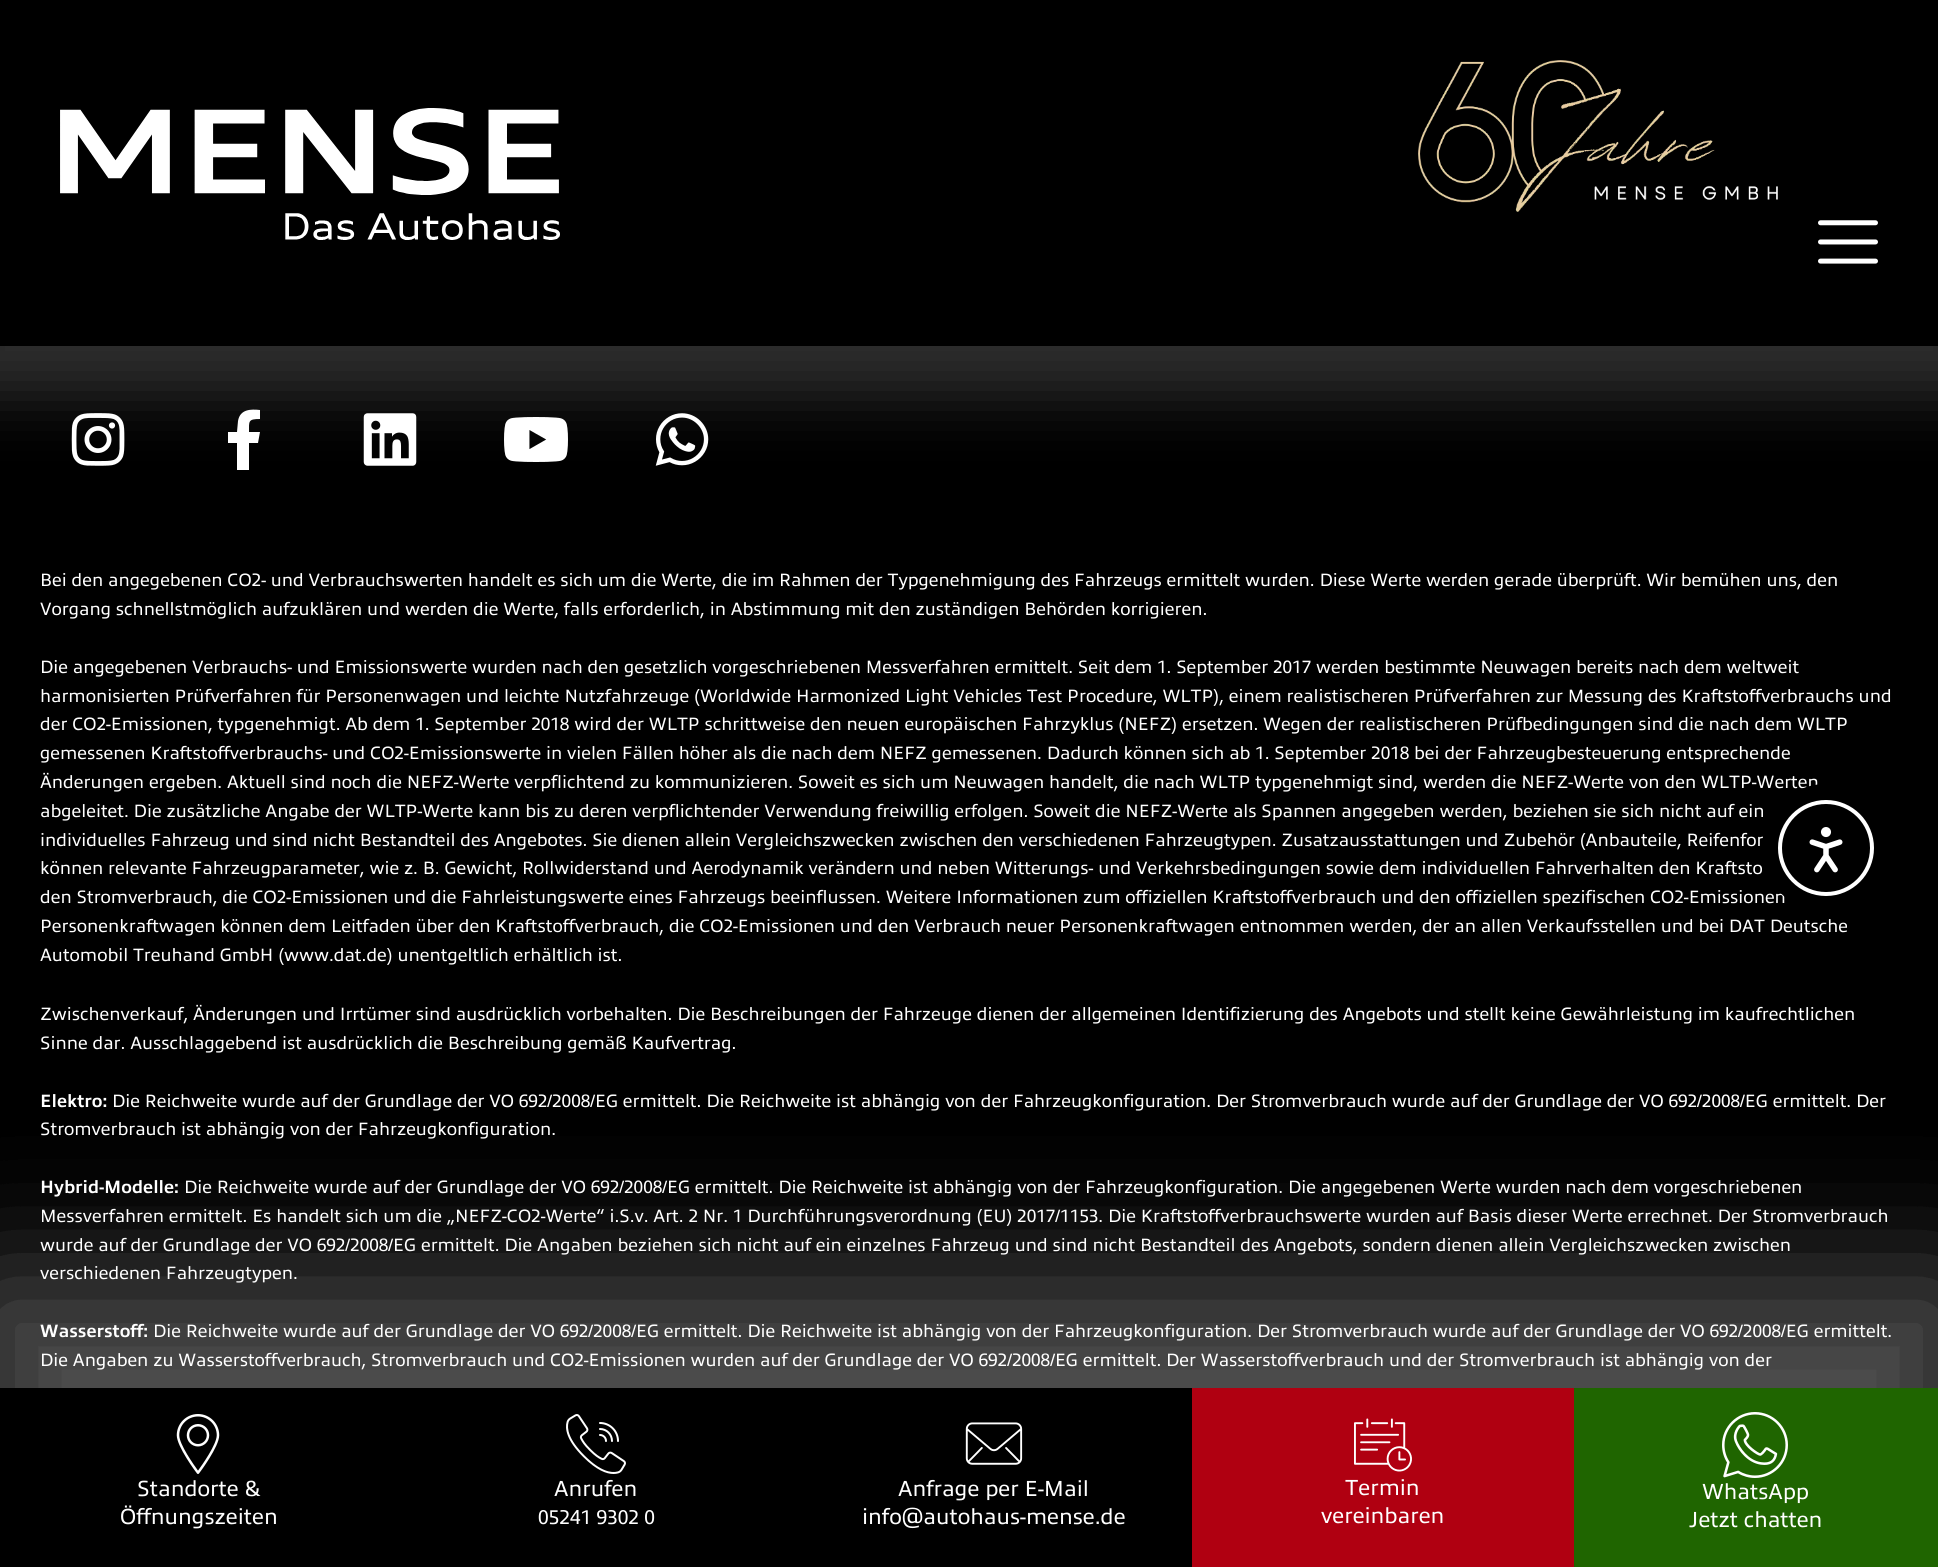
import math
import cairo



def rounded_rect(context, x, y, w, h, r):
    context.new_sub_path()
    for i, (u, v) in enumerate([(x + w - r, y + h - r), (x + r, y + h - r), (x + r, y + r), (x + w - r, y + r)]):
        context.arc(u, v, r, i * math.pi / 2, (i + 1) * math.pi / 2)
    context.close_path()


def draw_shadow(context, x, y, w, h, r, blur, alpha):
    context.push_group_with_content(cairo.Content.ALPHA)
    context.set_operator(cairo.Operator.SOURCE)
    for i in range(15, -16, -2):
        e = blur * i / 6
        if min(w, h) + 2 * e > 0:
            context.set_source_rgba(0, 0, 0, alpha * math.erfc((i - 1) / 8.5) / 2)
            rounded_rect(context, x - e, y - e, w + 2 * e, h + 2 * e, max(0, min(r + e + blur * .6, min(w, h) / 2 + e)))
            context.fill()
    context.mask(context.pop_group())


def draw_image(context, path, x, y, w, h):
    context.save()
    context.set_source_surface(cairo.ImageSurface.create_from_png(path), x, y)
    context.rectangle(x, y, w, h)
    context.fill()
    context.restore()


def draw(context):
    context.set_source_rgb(0, 0, 0)
    context.paint()
    draw_image(context, "images/1.png", 71, 413, 54, 53)
    context.set_source_rgb(1, 1, 1)
    context.new_path()
    context.move_to(258, 443)
    context.line_to(249, 443)
    context.line_to(249, 470)
    context.line_to(237, 470)
    context.line_to(237, 443)
    context.line_to(228, 443)
    context.line_to(228, 432)
    context.line_to(237, 432)
    context.line_to(238, 421)
    context.curve_to(240, 409, 251, 409, 260, 410)
    context.line_to(260, 419)
    context.curve_to(248, 419, 249, 421, 249, 432)
    context.line_to(260, 432)
    context.close_path()
    context.fill()
    draw_image(context, "images/2.png", 363, 413, 54, 53)
    draw_image(context, "images/3.png", 504, 417, 64, 45)
    draw_image(context, "images/4.png", 655, 413, 54, 53)
    context.set_source_rgb(1, 1, 1)
    draw_shadow(context, -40, -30, 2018, 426, 0, 30, 0.18)
    context.set_source_rgb(0, 0, 0)
    context.rectangle(0, 0, 1938, 346)
    context.fill()
    draw_image(context, "images/6.png", 60, 108, 500, 132)
    draw_image(context, "images/7.png", 1418, 60, 360, 152)
    draw_image(context, "images/8.png", 1818, 220, 60, 44)
    context.set_source_rgb(1, 1, 1)
    draw_shadow(context, -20, 1288, 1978, 220, 0, 70, 0.18)
    draw_shadow(context, -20, 1288, 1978, 220, 0, 70, 0.18)
    context.set_source_rgb(0, 0, 0)
    context.rectangle(0, 1388, 1192, 179)
    context.fill()
    draw_image(context, "images/9.png", 176, 1414, 44, 60)
    draw_image(context, "images/10.png", 566, 1414, 60, 60)
    draw_image(context, "images/11.png", 965, 1422, 58, 43)
    context.set_source_rgb(176 / 255, 0, 17 / 255)
    context.rectangle(1192, 1388, 382, 179)
    context.fill()
    draw_image(context, "images/12.png", 1354, 1418, 58, 54)
    context.set_source_rgb(31 / 255, 101 / 255, 0)
    context.rectangle(1574, 1388, 364, 179)
    context.fill()
    draw_image(context, "images/13.png", 1722, 1412, 66, 66)
    context.select_font_face("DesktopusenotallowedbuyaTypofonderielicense")
    context.set_font_size(18)
    context.set_source_rgb(1, 1, 1)
    context.move_to(40, 586)
    context.show_text("Bei den angegebenen CO2- und Verbrauchswerten handelt es sich um die Werte, die im Rahmen der Typgenehmigung des Fahrzeugs ermittelt wurden. Diese Werte werden gerade überprüft. Wir bemühen uns, den")
    context.move_to(40, 615)
    context.show_text("Vorgang schnellstmöglich aufzuklären und werden die Werte, falls erforderlich, in Abstimmung mit den zuständigen Behörden korrigieren.")
    context.move_to(40, 673)
    context.show_text("Die angegebenen Verbrauchs- und Emissionswerte wurden nach den gesetzlich vorgeschriebenen Messverfahren ermittelt. Seit dem 1. September 2017 werden bestimmte Neuwagen bereits nach dem weltweit")
    context.move_to(40, 702)
    context.show_text("harmonisierten Prüfverfahren für Personenwagen und leichte Nutzfahrzeuge (Worldwide Harmonized Light Vehicles Test Procedure, WLTP), einem realistischeren Prüfverfahren zur Messung des Kraftstoffverbrauchs und")
    context.move_to(40, 730)
    context.show_text("der CO2-Emissionen, typgenehmigt. Ab dem 1. September 2018 wird der WLTP schrittweise den neuen europäischen Fahrzyklus (NEFZ) ersetzen. Wegen der realistischeren Prüfbedingungen sind die nach dem WLTP")
    context.move_to(40, 759)
    context.show_text("gemessenen Kraftstoffverbrauchs- und CO2-Emissionswerte in vielen Fällen höher als die nach dem NEFZ gemessenen. Dadurch können sich ab 1. September 2018 bei der Fahrzeugbesteuerung entsprechende")
    context.move_to(40, 788)
    context.show_text("Änderungen ergeben. Aktuell sind noch die NEFZ-Werte verpflichtend zu kommunizieren. Soweit es sich um Neuwagen handelt, die nach WLTP typgenehmigt sind, werden die NEFZ-Werte von den WLTP-Werten")
    context.move_to(40, 817)
    context.show_text("abgeleitet. Die zusätzliche Angabe der WLTP-Werte kann bis zu deren verpflichtender Verwendung freiwillig erfolgen. Soweit die NEFZ-Werte als Spannen angegeben werden, beziehen sie sich nicht auf ein")
    context.move_to(40, 846)
    context.show_text("individuelles Fahrzeug und sind nicht Bestandteil des Angebotes. Sie dienen allein Vergleichszwecken zwischen den verschiedenen Fahrzeugtypen. Zusatzausstattungen und Zubehör (Anbauteile, Reifenfor")
    context.move_to(40, 874)
    context.show_text("können relevante Fahrzeugparameter, wie z. B. Gewicht, Rollwiderstand und Aerodynamik verändern und neben Witterungs- und Verkehrsbedingungen sowie dem individuellen Fahrverhalten den Kraftsto")
    context.move_to(40, 903)
    context.show_text("den Stromverbrauch, die CO2-Emissionen und die Fahrleistungswerte eines Fahrzeugs beeinflussen. Weitere Informationen zum offiziellen Kraftstoffverbrauch und den offiziellen spezifischen CO2-Emissionen")
    context.move_to(40, 932)
    context.show_text("Personenkraftwagen können dem Leitfaden über den Kraftstoffverbrauch, die CO2-Emissionen und den Verbrauch neuer Personenkraftwagen entnommen werden, der an allen Verkaufsstellen und bei DAT Deutsche")
    context.move_to(40, 961)
    context.show_text("Automobil Treuhand GmbH (www.dat.de) unentgeltlich erhältlich ist.")
    context.move_to(40, 1020)
    context.show_text("Zwischenverkauf, Änderungen und Irrtümer sind ausdrücklich vorbehalten. Die Beschreibungen der Fahrzeuge dienen der allgemeinen Identifizierung des Angebots und stellt keine Gewährleistung im kaufrechtlichen")
    context.move_to(40, 1049)
    context.show_text("Sinne dar. Ausschlaggebend ist ausdrücklich die Beschreibung gemäß Kaufvertrag.")
    context.select_font_face("DesktopusenotallowedbuyaTypofonderielicense", cairo.FontSlant.NORMAL, cairo.FontWeight.BOLD)
    context.move_to(40, 1107)
    context.show_text("Elektro:")
    context.select_font_face("DesktopusenotallowedbuyaTypofonderielicense")
    context.move_to(112, 1107)
    context.show_text("Die Reichweite wurde auf der Grundlage der VO 692/2008/EG ermittelt. Die Reichweite ist abhängig von der Fahrzeugkonfiguration. Der Stromverbrauch wurde auf der Grundlage der VO 692/2008/EG ermittelt. Der")
    context.move_to(40, 1135)
    context.show_text("Stromverbrauch ist abhängig von der Fahrzeugkonfiguration.")
    context.select_font_face("DesktopusenotallowedbuyaTypofonderielicense", cairo.FontSlant.NORMAL, cairo.FontWeight.BOLD)
    context.move_to(40, 1193)
    context.show_text("Hybrid-Modelle:")
    context.select_font_face("DesktopusenotallowedbuyaTypofonderielicense")
    context.move_to(184, 1193)
    context.show_text("Die Reichweite wurde auf der Grundlage der VO 692/2008/EG ermittelt. Die Reichweite ist abhängig von der Fahrzeugkonfiguration. Die angegebenen Werte wurden nach dem vorgeschriebenen")
    context.move_to(40, 1222)
    context.show_text("Messverfahren ermittelt. Es handelt sich um die „NEFZ-CO2-Werte“ i.S.v. Art. 2 Nr. 1 Durchführungsverordnung (EU) 2017/1153. Die Kraftstoffverbrauchswerte wurden auf Basis dieser Werte errechnet. Der Stromverbrauch")
    context.move_to(40, 1251)
    context.show_text("wurde auf der Grundlage der VO 692/2008/EG ermittelt. Die Angaben beziehen sich nicht auf ein einzelnes Fahrzeug und sind nicht Bestandteil des Angebots, sondern dienen allein Vergleichszwecken zwischen")
    context.move_to(40, 1279)
    context.show_text("verschiedenen Fahrzeugtypen.")
    context.select_font_face("DesktopusenotallowedbuyaTypofonderielicense", cairo.FontSlant.NORMAL, cairo.FontWeight.BOLD)
    context.move_to(40, 1337)
    context.show_text("Wasserstoff:")
    context.select_font_face("DesktopusenotallowedbuyaTypofonderielicense")
    context.move_to(153, 1337)
    context.show_text("Die Reichweite wurde auf der Grundlage der VO 692/2008/EG ermittelt. Die Reichweite ist abhängig von der Fahrzeugkonfiguration. Der Stromverbrauch wurde auf der Grundlage der VO 692/2008/EG ermittelt.")
    context.move_to(40, 1366)
    context.show_text("Die Angaben zu Wasserstoffverbrauch, Stromverbrauch und CO2-Emissionen wurden auf der Grundlage der VO 692/2008/EG ermittelt. Der Wasserstoffverbrauch und der Stromverbrauch ist abhängig von der")
    context.set_source_rgb(0, 0, 0)
    context.new_path()
    context.arc(1826, 848, 64, 0, 2 * math.pi)
    context.fill()
    context.arc(1826, 848, 46, 0, 2 * math.pi)
    context.set_source_rgb(1, 1, 1)
    context.set_line_width(4)
    context.stroke()
    draw_image(context, "images/5.png", 1809, 827, 34, 46)
    context.set_font_size(22)
    context.move_to(137, 1496)
    context.show_text("Standorte &")
    context.move_to(120, 1524)
    context.show_text("Öffnungszeiten")
    context.move_to(554, 1496)
    context.show_text("Anrufen")
    context.set_font_size(20)
    context.move_to(538, 1524)
    context.show_text("05241 9302 0")
    context.set_font_size(22)
    context.move_to(898, 1496)
    context.show_text("Anfrage per E-Mail")
    context.move_to(862, 1524)
    context.show_text("info@autohaus-mense.de")
    context.move_to(1345, 1495)
    context.show_text("Termin")
    context.move_to(1321, 1523)
    context.show_text("vereinbaren")
    context.move_to(1702, 1499)
    context.show_text("WhatsApp")
    context.move_to(1689, 1527)
    context.show_text("Jetzt chatten")


surface = cairo.ImageSurface(cairo.Format.RGB24, 1938, 1567)
context = cairo.Context(surface)
options = cairo.FontOptions()
options.set_hint_metrics(cairo.HintMetrics.OFF)
options.set_hint_style(cairo.HintStyle.NONE)
context.set_font_options(options)
context.set_miter_limit(4)
draw(context)
surface.write_to_png("out.png")
